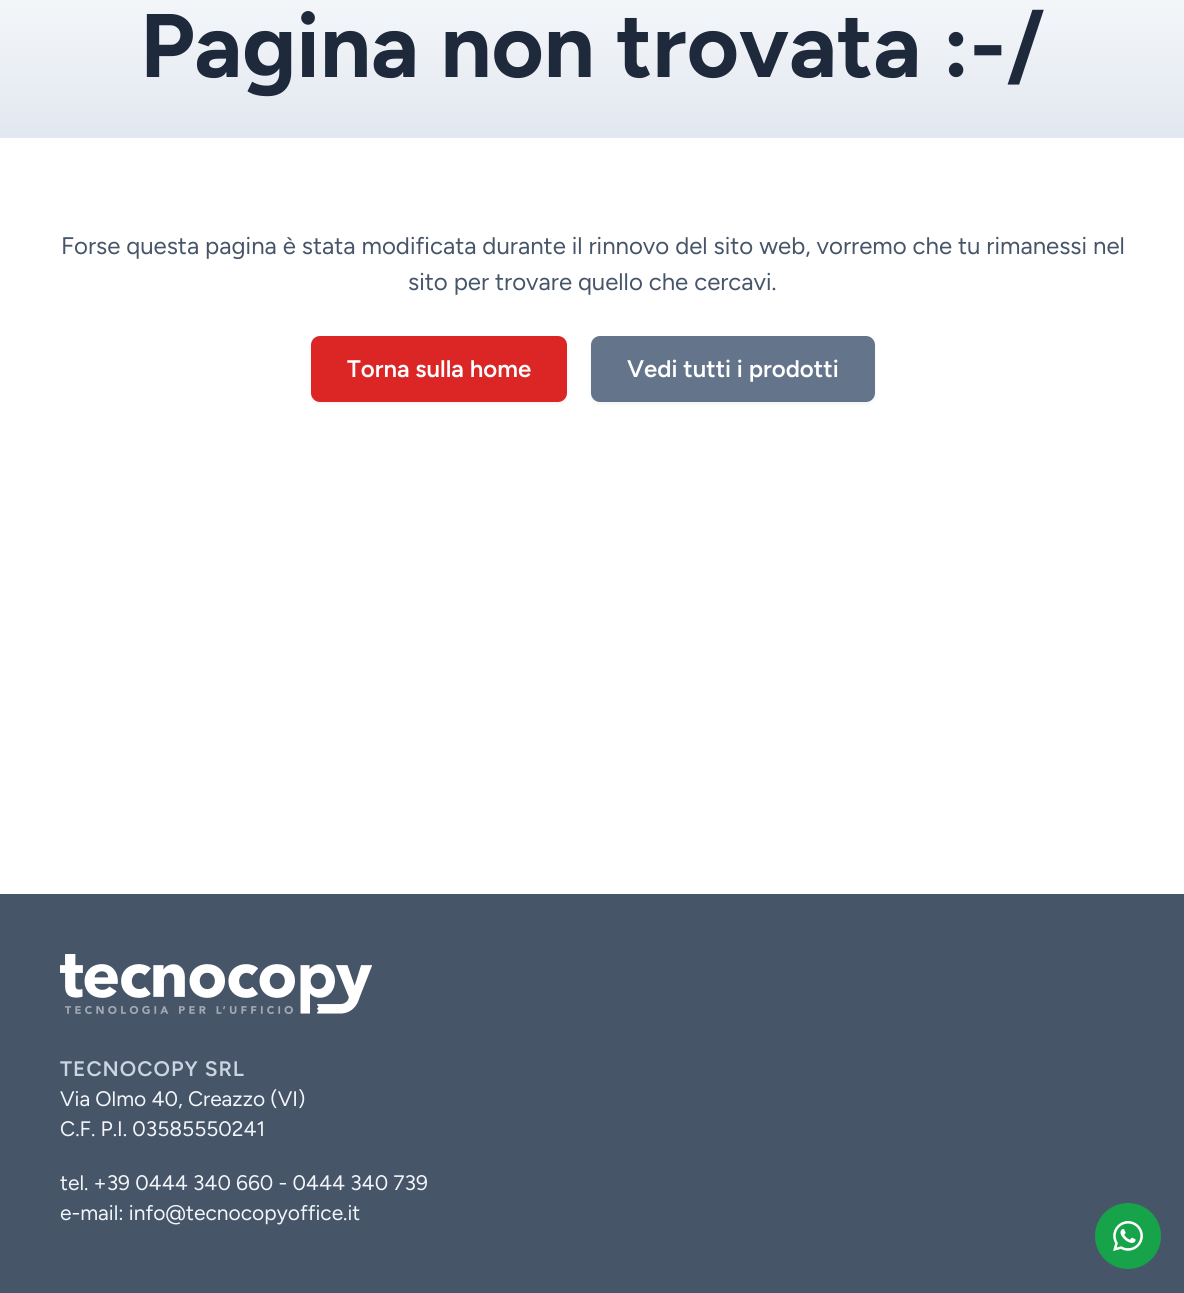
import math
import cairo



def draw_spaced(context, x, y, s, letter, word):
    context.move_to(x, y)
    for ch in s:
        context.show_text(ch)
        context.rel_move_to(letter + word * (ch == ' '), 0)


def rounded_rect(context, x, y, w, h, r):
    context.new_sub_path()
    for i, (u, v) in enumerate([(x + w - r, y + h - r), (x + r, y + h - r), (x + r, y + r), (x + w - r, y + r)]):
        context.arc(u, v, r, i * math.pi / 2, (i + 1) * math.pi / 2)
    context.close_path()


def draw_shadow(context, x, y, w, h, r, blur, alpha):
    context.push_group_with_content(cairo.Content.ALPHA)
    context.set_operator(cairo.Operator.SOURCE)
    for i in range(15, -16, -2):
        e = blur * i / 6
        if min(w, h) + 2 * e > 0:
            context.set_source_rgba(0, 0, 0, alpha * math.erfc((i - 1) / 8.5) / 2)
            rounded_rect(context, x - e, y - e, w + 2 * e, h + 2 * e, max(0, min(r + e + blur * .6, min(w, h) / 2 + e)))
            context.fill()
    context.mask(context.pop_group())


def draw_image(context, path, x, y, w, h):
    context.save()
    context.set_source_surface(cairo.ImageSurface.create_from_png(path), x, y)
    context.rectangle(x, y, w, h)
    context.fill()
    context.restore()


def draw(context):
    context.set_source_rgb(1, 1, 1)
    context.paint()
    gradient = cairo.LinearGradient(593, 138, 593, -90)
    gradient.add_color_stop_rgba(0, 226 / 255, 232 / 255, 240 / 255, 1)
    gradient.add_color_stop_rgba(1, 1, 1, 1, 1)
    context.set_source(gradient)
    context.rectangle(0, 0, 1184, 138)
    context.fill()
    context.set_source_rgb(0, 0, 0)
    draw_shadow(context, 311, 338, 256, 66, 9, 1.5, 0.05)
    context.set_source_rgb(220 / 255, 38 / 255, 38 / 255)
    rounded_rect(context, 311, 336, 256, 66, 9)
    context.fill()
    context.set_source_rgb(0, 0, 0)
    draw_shadow(context, 591, 338, 284, 66, 9, 1.5, 0.05)
    context.set_source_rgb(100 / 255, 116 / 255, 139 / 255)
    rounded_rect(context, 591, 336, 284, 66, 9)
    context.fill()
    context.set_source_rgb(71 / 255, 85 / 255, 105 / 255)
    context.rectangle(0, 894, 1184, 399)
    context.fill()
    draw_image(context, "images/1.png", 60, 954, 312, 60)
    context.set_source_rgb(22 / 255, 163 / 255, 74 / 255)
    context.arc(1128, 1236, 33, 0, 2 * math.pi)
    context.fill()
    draw_image(context, "images/2.png", 1113, 1221, 30, 30)
    context.select_font_face("Figtree", cairo.FontSlant.NORMAL, cairo.FontWeight.BOLD)
    context.set_font_size(90)
    context.set_source_rgb(30 / 255, 41 / 255, 59 / 255)
    context.move_to(140, 77)
    context.show_text("Pagina non trovata :-/")
    context.select_font_face("Figtree")
    context.set_font_size(24)
    context.set_source_rgb(71 / 255, 85 / 255, 105 / 255)
    context.move_to(61, 254)
    context.show_text("Forse questa pagina è stata modificata durante il rinnovo del sito web, vorremo che tu rimanessi nel")
    context.move_to(408, 290)
    context.show_text("sito per trovare quello che cercavi.")
    context.select_font_face("Figtree SemiBold")
    context.set_source_rgb(1, 1, 1)
    context.move_to(347, 377)
    context.show_text("Torna sulla home")
    context.move_to(627, 377)
    context.show_text("Vedi tutti i prodotti")
    context.set_font_size(21)
    context.set_source_rgb(203 / 255, 213 / 255, 225 / 255)
    draw_spaced(context, 60, 1076, "TECNOCOPY SRL", 1, 0)
    context.select_font_face("Figtree")
    context.set_source_rgb(241 / 255, 245 / 255, 249 / 255)
    context.move_to(60, 1106)
    context.show_text("Via Olmo 40, Creazzo (VI)")
    context.move_to(60, 1136)
    context.show_text("C.F. P.I. 03585550241")
    context.move_to(60, 1190)
    context.show_text("tel. +39 0444 340 660 - 0444 340 739")
    context.move_to(60, 1220)
    context.show_text("e-mail: info@tecnocopyoffice.it")


surface = cairo.ImageSurface(cairo.Format.RGB24, 1184, 1293)
context = cairo.Context(surface)
options = cairo.FontOptions()
options.set_hint_metrics(cairo.HintMetrics.OFF)
options.set_hint_style(cairo.HintStyle.NONE)
context.set_font_options(options)
context.set_miter_limit(4)
draw(context)
surface.write_to_png("out.png")
